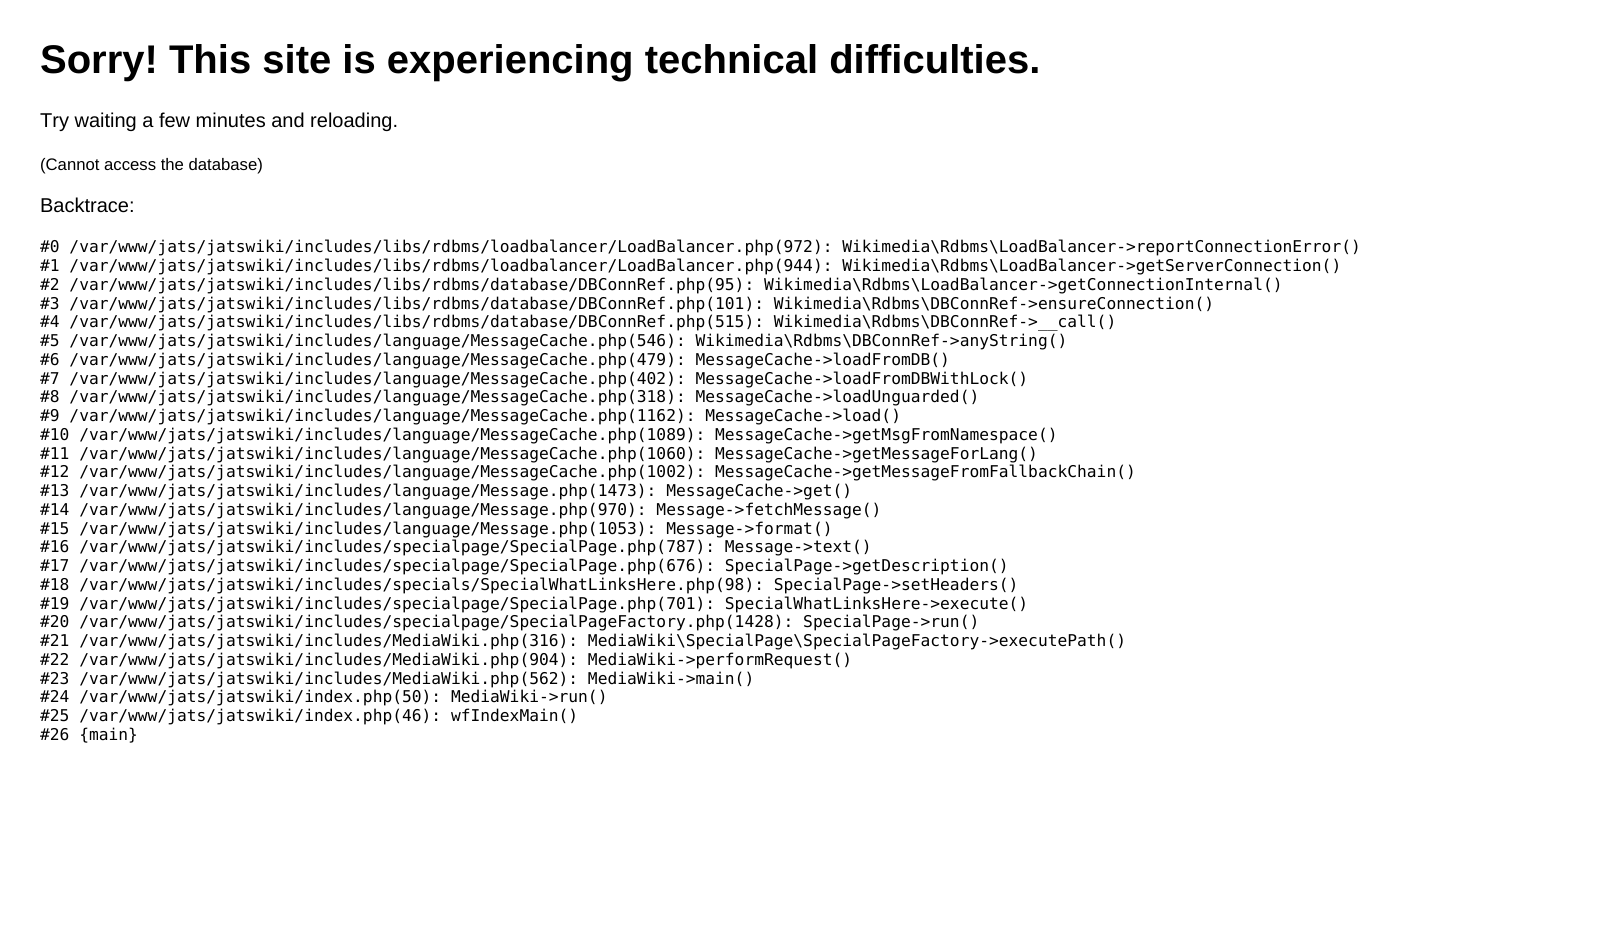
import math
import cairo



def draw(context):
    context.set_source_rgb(1, 1, 1)
    context.paint()
    context.select_font_face("Liberation Sans", cairo.FontSlant.NORMAL, cairo.FontWeight.BOLD)
    context.set_font_size(40)
    context.set_source_rgb(0, 0, 0)
    context.move_to(40, 73)
    context.show_text("Sorry! This site is experiencing technical difficulties.")
    context.select_font_face("Liberation Sans")
    context.set_font_size(20)
    context.move_to(40, 127)
    context.show_text("Try waiting a few minutes and reloading.")
    context.set_font_size(16.7)
    context.move_to(40, 170)
    context.show_text("(Cannot access the database)")
    context.set_font_size(20)
    context.move_to(40, 212)
    context.show_text("Backtrace:")
    context.select_font_face("DejaVu Sans Mono")
    context.set_font_size(16.25)
    context.move_to(40, 252)
    context.show_text("#0 /var/www/jats/jatswiki/includes/libs/rdbms/loadbalancer/LoadBalancer.php(972): Wikimedia\\Rdbms\\LoadBalancer->reportConnectionError()")
    context.move_to(40, 271)
    context.show_text("#1 /var/www/jats/jatswiki/includes/libs/rdbms/loadbalancer/LoadBalancer.php(944): Wikimedia\\Rdbms\\LoadBalancer->getServerConnection()")
    context.move_to(40, 290)
    context.show_text("#2 /var/www/jats/jatswiki/includes/libs/rdbms/database/DBConnRef.php(95): Wikimedia\\Rdbms\\LoadBalancer->getConnectionInternal()")
    context.move_to(40, 309)
    context.show_text("#3 /var/www/jats/jatswiki/includes/libs/rdbms/database/DBConnRef.php(101): Wikimedia\\Rdbms\\DBConnRef->ensureConnection()")
    context.move_to(40, 327)
    context.show_text("#4 /var/www/jats/jatswiki/includes/libs/rdbms/database/DBConnRef.php(515): Wikimedia\\Rdbms\\DBConnRef->__call()")
    context.move_to(40, 346)
    context.show_text("#5 /var/www/jats/jatswiki/includes/language/MessageCache.php(546): Wikimedia\\Rdbms\\DBConnRef->anyString()")
    context.move_to(40, 365)
    context.show_text("#6 /var/www/jats/jatswiki/includes/language/MessageCache.php(479): MessageCache->loadFromDB()")
    context.move_to(40, 384)
    context.show_text("#7 /var/www/jats/jatswiki/includes/language/MessageCache.php(402): MessageCache->loadFromDBWithLock()")
    context.move_to(40, 402)
    context.show_text("#8 /var/www/jats/jatswiki/includes/language/MessageCache.php(318): MessageCache->loadUnguarded()")
    context.move_to(40, 421)
    context.show_text("#9 /var/www/jats/jatswiki/includes/language/MessageCache.php(1162): MessageCache->load()")
    context.move_to(40, 440)
    context.show_text("#10 /var/www/jats/jatswiki/includes/language/MessageCache.php(1089): MessageCache->getMsgFromNamespace()")
    context.move_to(40, 459)
    context.show_text("#11 /var/www/jats/jatswiki/includes/language/MessageCache.php(1060): MessageCache->getMessageForLang()")
    context.move_to(40, 477)
    context.show_text("#12 /var/www/jats/jatswiki/includes/language/MessageCache.php(1002): MessageCache->getMessageFromFallbackChain()")
    context.move_to(40, 496)
    context.show_text("#13 /var/www/jats/jatswiki/includes/language/Message.php(1473): MessageCache->get()")
    context.move_to(40, 515)
    context.show_text("#14 /var/www/jats/jatswiki/includes/language/Message.php(970): Message->fetchMessage()")
    context.move_to(40, 534)
    context.show_text("#15 /var/www/jats/jatswiki/includes/language/Message.php(1053): Message->format()")
    context.move_to(40, 552)
    context.show_text("#16 /var/www/jats/jatswiki/includes/specialpage/SpecialPage.php(787): Message->text()")
    context.move_to(40, 571)
    context.show_text("#17 /var/www/jats/jatswiki/includes/specialpage/SpecialPage.php(676): SpecialPage->getDescription()")
    context.move_to(40, 590)
    context.show_text("#18 /var/www/jats/jatswiki/includes/specials/SpecialWhatLinksHere.php(98): SpecialPage->setHeaders()")
    context.move_to(40, 609)
    context.show_text("#19 /var/www/jats/jatswiki/includes/specialpage/SpecialPage.php(701): SpecialWhatLinksHere->execute()")
    context.move_to(40, 627)
    context.show_text("#20 /var/www/jats/jatswiki/includes/specialpage/SpecialPageFactory.php(1428): SpecialPage->run()")
    context.move_to(40, 646)
    context.show_text("#21 /var/www/jats/jatswiki/includes/MediaWiki.php(316): MediaWiki\\SpecialPage\\SpecialPageFactory->executePath()")
    context.move_to(40, 665)
    context.show_text("#22 /var/www/jats/jatswiki/includes/MediaWiki.php(904): MediaWiki->performRequest()")
    context.move_to(40, 684)
    context.show_text("#23 /var/www/jats/jatswiki/includes/MediaWiki.php(562): MediaWiki->main()")
    context.move_to(40, 702)
    context.show_text("#24 /var/www/jats/jatswiki/index.php(50): MediaWiki->run()")
    context.move_to(40, 721)
    context.show_text("#25 /var/www/jats/jatswiki/index.php(46): wfIndexMain()")
    context.move_to(40, 740)
    context.show_text("#26 {main}")


surface = cairo.ImageSurface(cairo.Format.RGB24, 1623, 936)
context = cairo.Context(surface)
options = cairo.FontOptions()
options.set_hint_metrics(cairo.HintMetrics.OFF)
options.set_hint_style(cairo.HintStyle.NONE)
context.set_font_options(options)
context.set_miter_limit(4)
draw(context)
surface.write_to_png("out.png")
